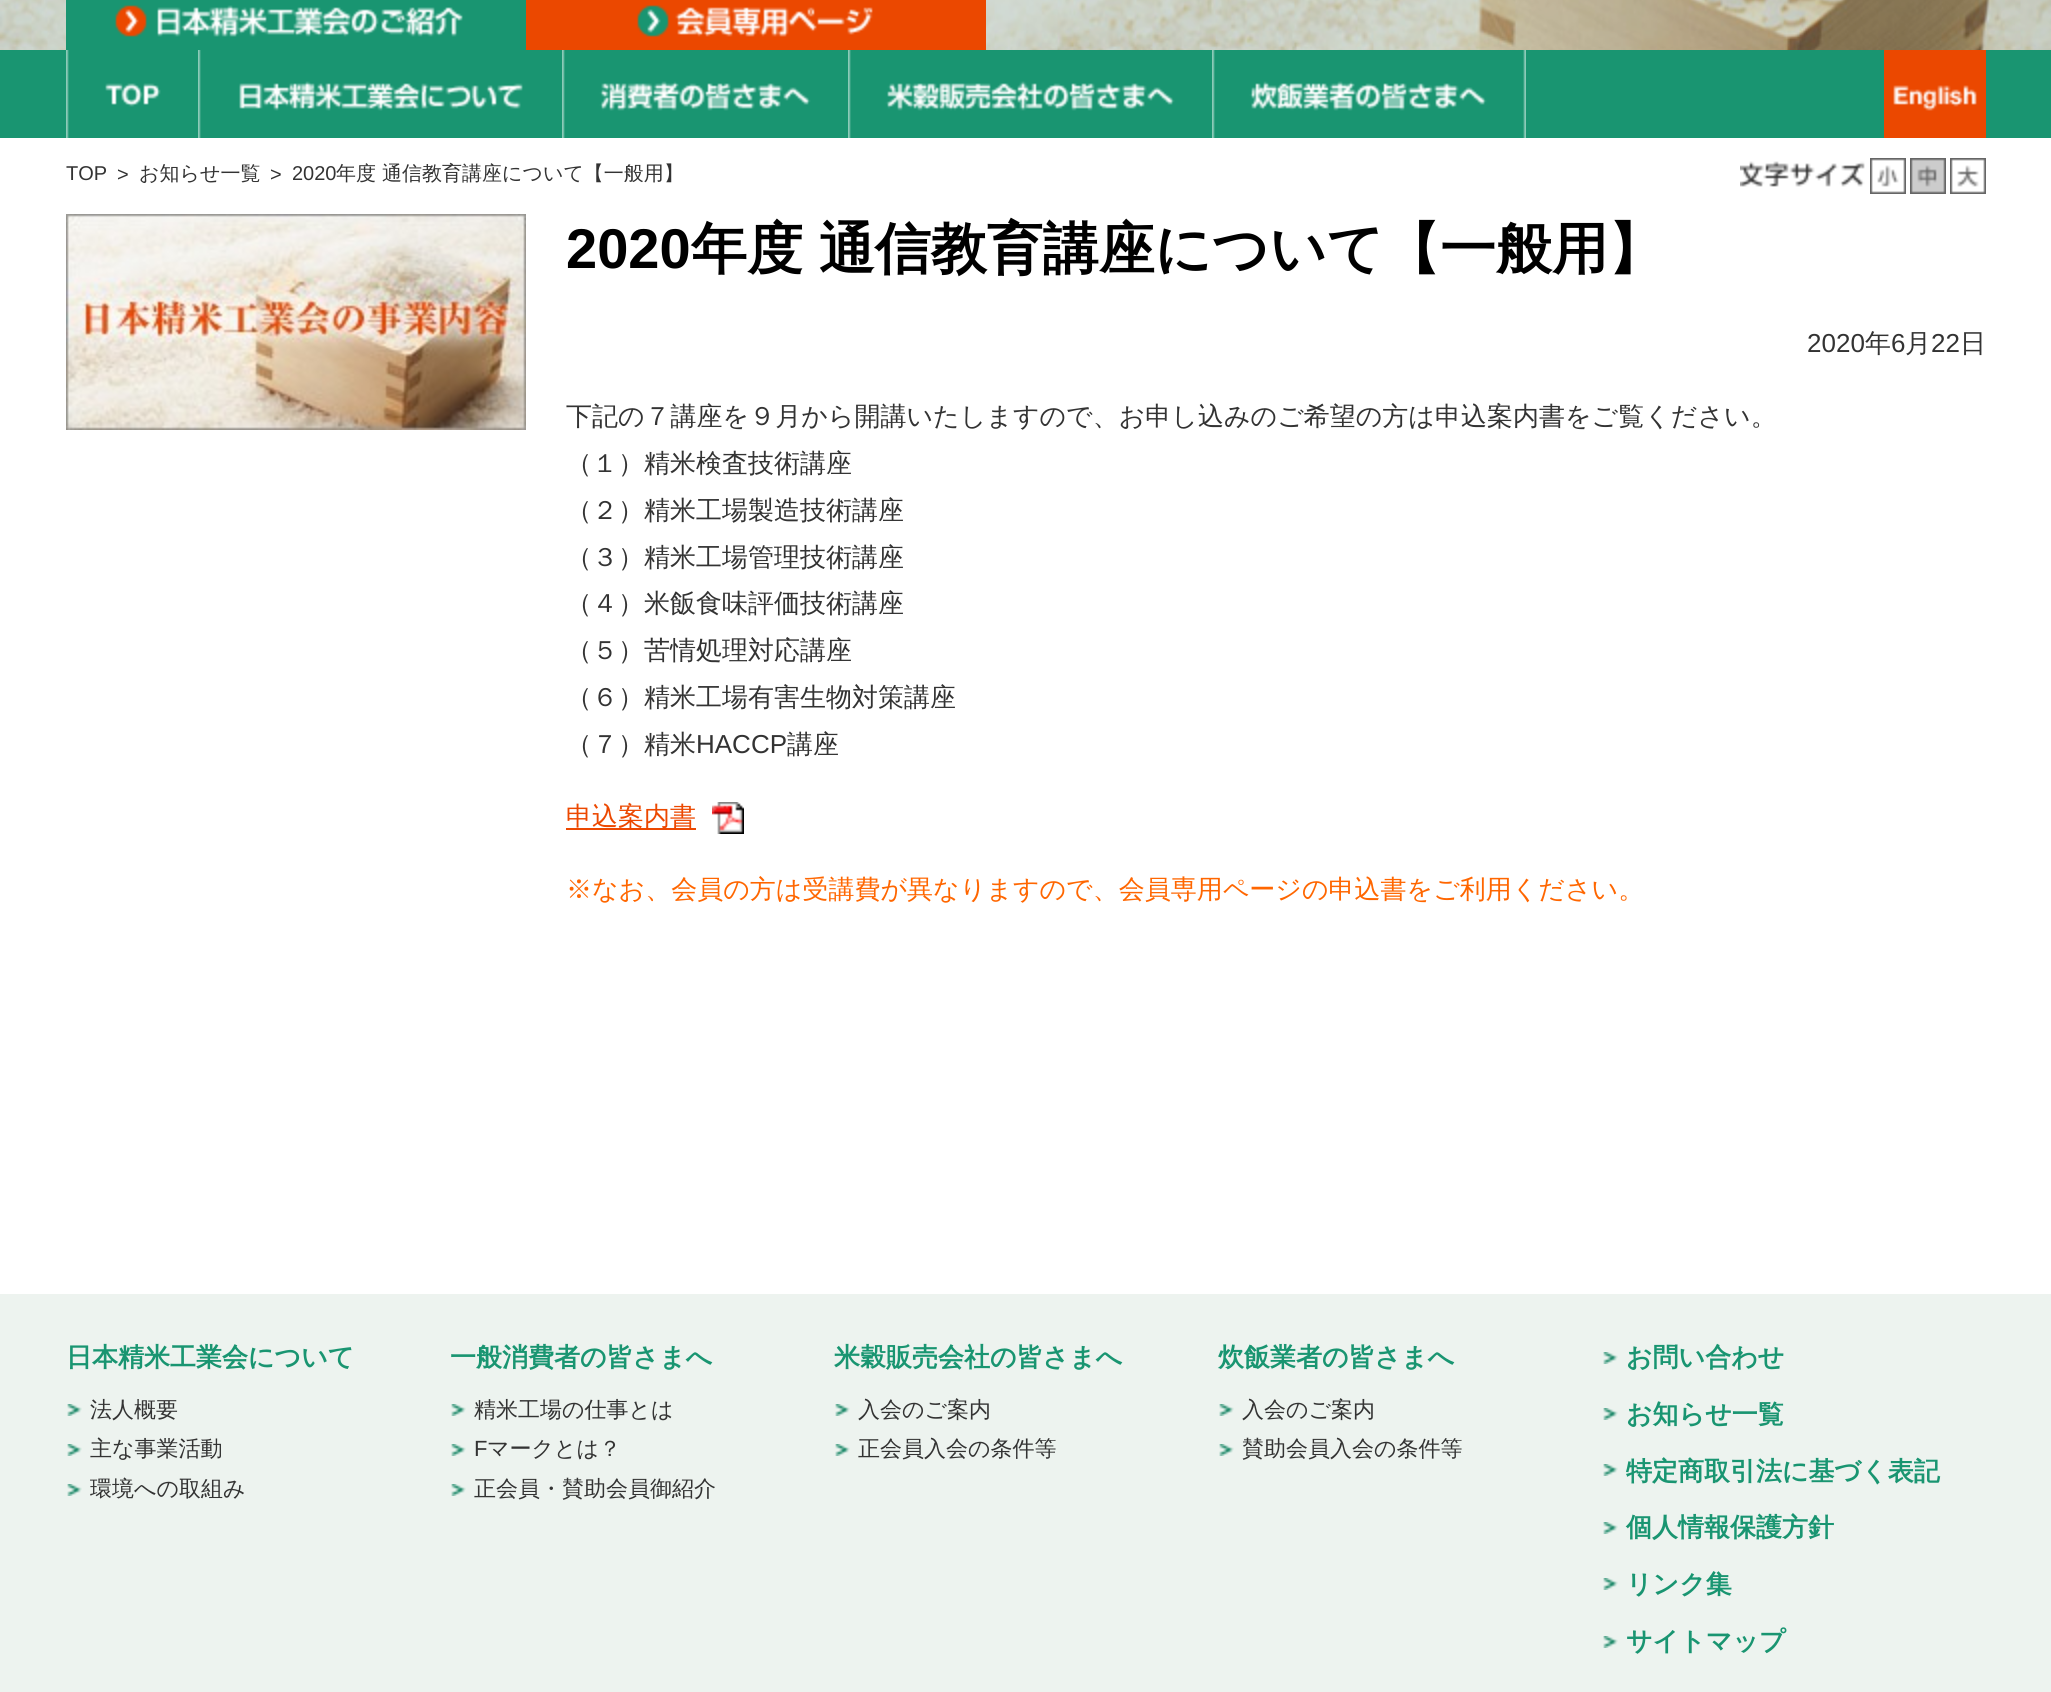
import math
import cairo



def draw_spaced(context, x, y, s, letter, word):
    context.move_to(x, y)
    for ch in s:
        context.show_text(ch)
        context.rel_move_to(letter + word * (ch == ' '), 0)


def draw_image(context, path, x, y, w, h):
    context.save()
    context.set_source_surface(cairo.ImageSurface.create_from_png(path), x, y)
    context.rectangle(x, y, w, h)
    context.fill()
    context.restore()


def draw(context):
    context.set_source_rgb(1, 1, 1)
    context.paint()
    draw_image(context, "images/1.png", 0, 0, 2051, 50)
    context.set_source_rgba(70 / 255, 120 / 255, 105 / 255, 0.2)
    context.rectangle(0, 0, 2051, 50)
    context.fill()
    draw_image(context, "images/2.png", 66, 0, 460, 50)
    draw_image(context, "images/3.png", 526, 0, 460, 50)
    context.set_source_rgb(25 / 255, 149 / 255, 113 / 255)
    context.rectangle(0, 50, 2051, 88)
    context.fill()
    draw_image(context, "images/4.png", 66, 50, 95, 88)
    draw_image(context, "images/5.png", 198, 50, 325, 88)
    draw_image(context, "images/6.png", 562, 50, 249, 88)
    draw_image(context, "images/7.png", 848, 50, 327, 88)
    draw_image(context, "images/8.png", 1212, 50, 314, 88)
    draw_image(context, "images/9.png", 1884, 50, 102, 88)
    draw_image(context, "images/10.png", 1740, 161, 125, 26)
    draw_image(context, "images/11.png", 1870, 158, 36, 36)
    draw_image(context, "images/12.png", 1910, 158, 36, 36)
    draw_image(context, "images/13.png", 1950, 158, 36, 36)
    draw_image(context, "images/14.png", 66, 214, 460, 216)
    context.set_source_rgb(236 / 255, 72 / 255, 0)
    context.rectangle(566, 828, 130, 2)
    context.fill()
    draw_image(context, "images/15.png", 712, 802, 32, 32)
    context.set_source_rgb(237 / 255, 243 / 255, 239 / 255)
    context.rectangle(0, 1294, 2051, 398)
    context.fill()
    draw_image(context, "images/16.png", 67, 1404, 15, 12)
    draw_image(context, "images/16.png", 67, 1444, 15, 12)
    draw_image(context, "images/16.png", 67, 1484, 15, 12)
    draw_image(context, "images/16.png", 451, 1404, 15, 12)
    draw_image(context, "images/16.png", 451, 1444, 15, 12)
    draw_image(context, "images/16.png", 451, 1484, 15, 12)
    draw_image(context, "images/16.png", 835, 1404, 15, 12)
    draw_image(context, "images/16.png", 835, 1444, 15, 12)
    draw_image(context, "images/16.png", 1219, 1404, 15, 12)
    draw_image(context, "images/16.png", 1219, 1444, 15, 12)
    draw_image(context, "images/16.png", 1603, 1352, 15, 12)
    draw_image(context, "images/16.png", 1603, 1408, 15, 12)
    draw_image(context, "images/16.png", 1603, 1464, 15, 12)
    draw_image(context, "images/16.png", 1603, 1522, 15, 12)
    draw_image(context, "images/16.png", 1603, 1578, 15, 12)
    draw_image(context, "images/16.png", 1603, 1636, 15, 12)
    context.select_font_face("Liberation Sans")
    context.set_font_size(20)
    context.set_source_rgb(51 / 255, 51 / 255, 51 / 255)
    context.move_to(66, 180)
    context.show_text("TOP")
    context.move_to(117, 181)
    context.show_text(">")
    context.select_font_face("WenQuanYi Zen Hei Medium")
    context.move_to(139, 180)
    context.show_text("お知らせ一覧")
    context.select_font_face("Liberation Sans")
    context.move_to(270, 181)
    context.show_text(">")
    context.move_to(292, 180)
    context.show_text("2020")
    context.select_font_face("WenQuanYi Zen Hei Medium")
    context.move_to(336, 180)
    context.show_text("年度 通信教育講座について【一般用】")
    context.select_font_face("Liberation Sans", cairo.FontSlant.NORMAL, cairo.FontWeight.BOLD)
    context.set_font_size(56)
    context.set_source_rgb(0, 0, 0)
    context.move_to(566, 268)
    context.show_text("2020")
    context.select_font_face("WenQuanYi Zen Hei", cairo.FontSlant.NORMAL, cairo.FontWeight.BOLD)
    draw_spaced(context, 691, 268, "年度 通信教育講座について【一般用】", 0, -1)
    context.select_font_face("Liberation Sans")
    context.set_font_size(26)
    context.set_source_rgb(51 / 255, 51 / 255, 51 / 255)
    context.move_to(1807, 352)
    context.show_text("2020")
    context.select_font_face("WenQuanYi Zen Hei Medium")
    context.move_to(1865, 352)
    context.show_text("年")
    context.select_font_face("Liberation Sans")
    context.move_to(1891, 352)
    context.show_text("6")
    context.select_font_face("WenQuanYi Zen Hei Medium")
    context.move_to(1905, 352)
    context.show_text("月")
    context.select_font_face("Liberation Sans")
    context.move_to(1931, 352)
    context.show_text("22")
    context.select_font_face("WenQuanYi Zen Hei Medium")
    context.move_to(1960, 352)
    context.show_text("日")
    context.move_to(566, 425)
    context.show_text("下記の７講座を９月から開講いたしますので、お申し込みのご希望の方は申込案内書をご覧ください。")
    context.move_to(566, 472)
    context.show_text("（１）精米検査技術講座")
    context.move_to(566, 519)
    context.show_text("（２）精米工場製造技術講座")
    context.move_to(566, 566)
    context.show_text("（３）精米工場管理技術講座")
    context.move_to(566, 612)
    context.show_text("（４）米飯食味評価技術講座")
    context.move_to(566, 659)
    context.show_text("（５）苦情処理対応講座")
    context.move_to(566, 706)
    context.show_text("（６）精米工場有害生物対策講座")
    context.move_to(566, 753)
    context.show_text("（７）精米")
    context.select_font_face("Liberation Sans")
    context.move_to(696, 753)
    context.show_text("HACCP")
    context.select_font_face("WenQuanYi Zen Hei Medium")
    context.move_to(787, 753)
    context.show_text("講座")
    context.set_source_rgb(236 / 255, 72 / 255, 0)
    context.move_to(566, 825)
    context.show_text("申込案内書")
    context.set_source_rgb(1, 102 / 255, 0)
    context.move_to(566, 898)
    context.show_text("※なお、会員の方は受講費が異なりますので、会員専用ページの申込書をご利用ください。")
    context.select_font_face("WenQuanYi Zen Hei", cairo.FontSlant.NORMAL, cairo.FontWeight.BOLD)
    context.set_source_rgb(25 / 255, 149 / 255, 113 / 255)
    context.move_to(66, 1366)
    context.show_text("日本精米工業会について")
    context.select_font_face("WenQuanYi Zen Hei Medium")
    context.set_font_size(22)
    context.set_source_rgb(51 / 255, 51 / 255, 51 / 255)
    context.move_to(90, 1417)
    context.show_text("法人概要")
    context.move_to(90, 1456)
    context.show_text("主な事業活動")
    context.move_to(90, 1496)
    context.show_text("環境への取組み")
    context.select_font_face("WenQuanYi Zen Hei", cairo.FontSlant.NORMAL, cairo.FontWeight.BOLD)
    context.set_font_size(26)
    context.set_source_rgb(25 / 255, 149 / 255, 113 / 255)
    context.move_to(450, 1366)
    context.show_text("一般消費者の皆さまへ")
    context.select_font_face("WenQuanYi Zen Hei Medium")
    context.set_font_size(22)
    context.set_source_rgb(51 / 255, 51 / 255, 51 / 255)
    context.move_to(474, 1417)
    context.show_text("精米工場の仕事とは")
    context.select_font_face("Liberation Sans")
    context.move_to(474, 1456)
    context.show_text("F")
    context.select_font_face("WenQuanYi Zen Hei Medium")
    context.move_to(487, 1456)
    context.show_text("マークとは？")
    context.move_to(474, 1496)
    context.show_text("正会員・賛助会員御紹介")
    context.select_font_face("WenQuanYi Zen Hei", cairo.FontSlant.NORMAL, cairo.FontWeight.BOLD)
    context.set_font_size(26)
    context.set_source_rgb(25 / 255, 149 / 255, 113 / 255)
    context.move_to(834, 1366)
    context.show_text("米穀販売会社の皆さまへ")
    context.select_font_face("WenQuanYi Zen Hei Medium")
    context.set_font_size(22)
    context.set_source_rgb(51 / 255, 51 / 255, 51 / 255)
    context.move_to(858, 1417)
    context.show_text("入会のご案内")
    context.move_to(858, 1456)
    context.show_text("正会員入会の条件等")
    context.select_font_face("WenQuanYi Zen Hei", cairo.FontSlant.NORMAL, cairo.FontWeight.BOLD)
    context.set_font_size(26)
    context.set_source_rgb(25 / 255, 149 / 255, 113 / 255)
    context.move_to(1218, 1366)
    context.show_text("炊飯業者の皆さまへ")
    context.select_font_face("WenQuanYi Zen Hei Medium")
    context.set_font_size(22)
    context.set_source_rgb(51 / 255, 51 / 255, 51 / 255)
    context.move_to(1242, 1417)
    context.show_text("入会のご案内")
    context.move_to(1242, 1456)
    context.show_text("賛助会員入会の条件等")
    context.select_font_face("WenQuanYi Zen Hei", cairo.FontSlant.NORMAL, cairo.FontWeight.BOLD)
    context.set_font_size(26)
    context.set_source_rgb(25 / 255, 149 / 255, 113 / 255)
    context.move_to(1626, 1366)
    context.show_text("お問い合わせ")
    context.move_to(1626, 1423)
    context.show_text("お知らせ一覧")
    context.move_to(1626, 1480)
    context.show_text("特定商取引法に基づく表記")
    context.move_to(1626, 1536)
    context.show_text("個人情報保護方針")
    context.move_to(1626, 1593)
    context.show_text("リンク集")
    context.move_to(1626, 1650)
    context.show_text("サイトマップ")


surface = cairo.ImageSurface(cairo.Format.RGB24, 2051, 1692)
context = cairo.Context(surface)
options = cairo.FontOptions()
options.set_hint_metrics(cairo.HintMetrics.OFF)
options.set_hint_style(cairo.HintStyle.NONE)
context.set_font_options(options)
context.set_miter_limit(4)
draw(context)
surface.write_to_png("out.png")
